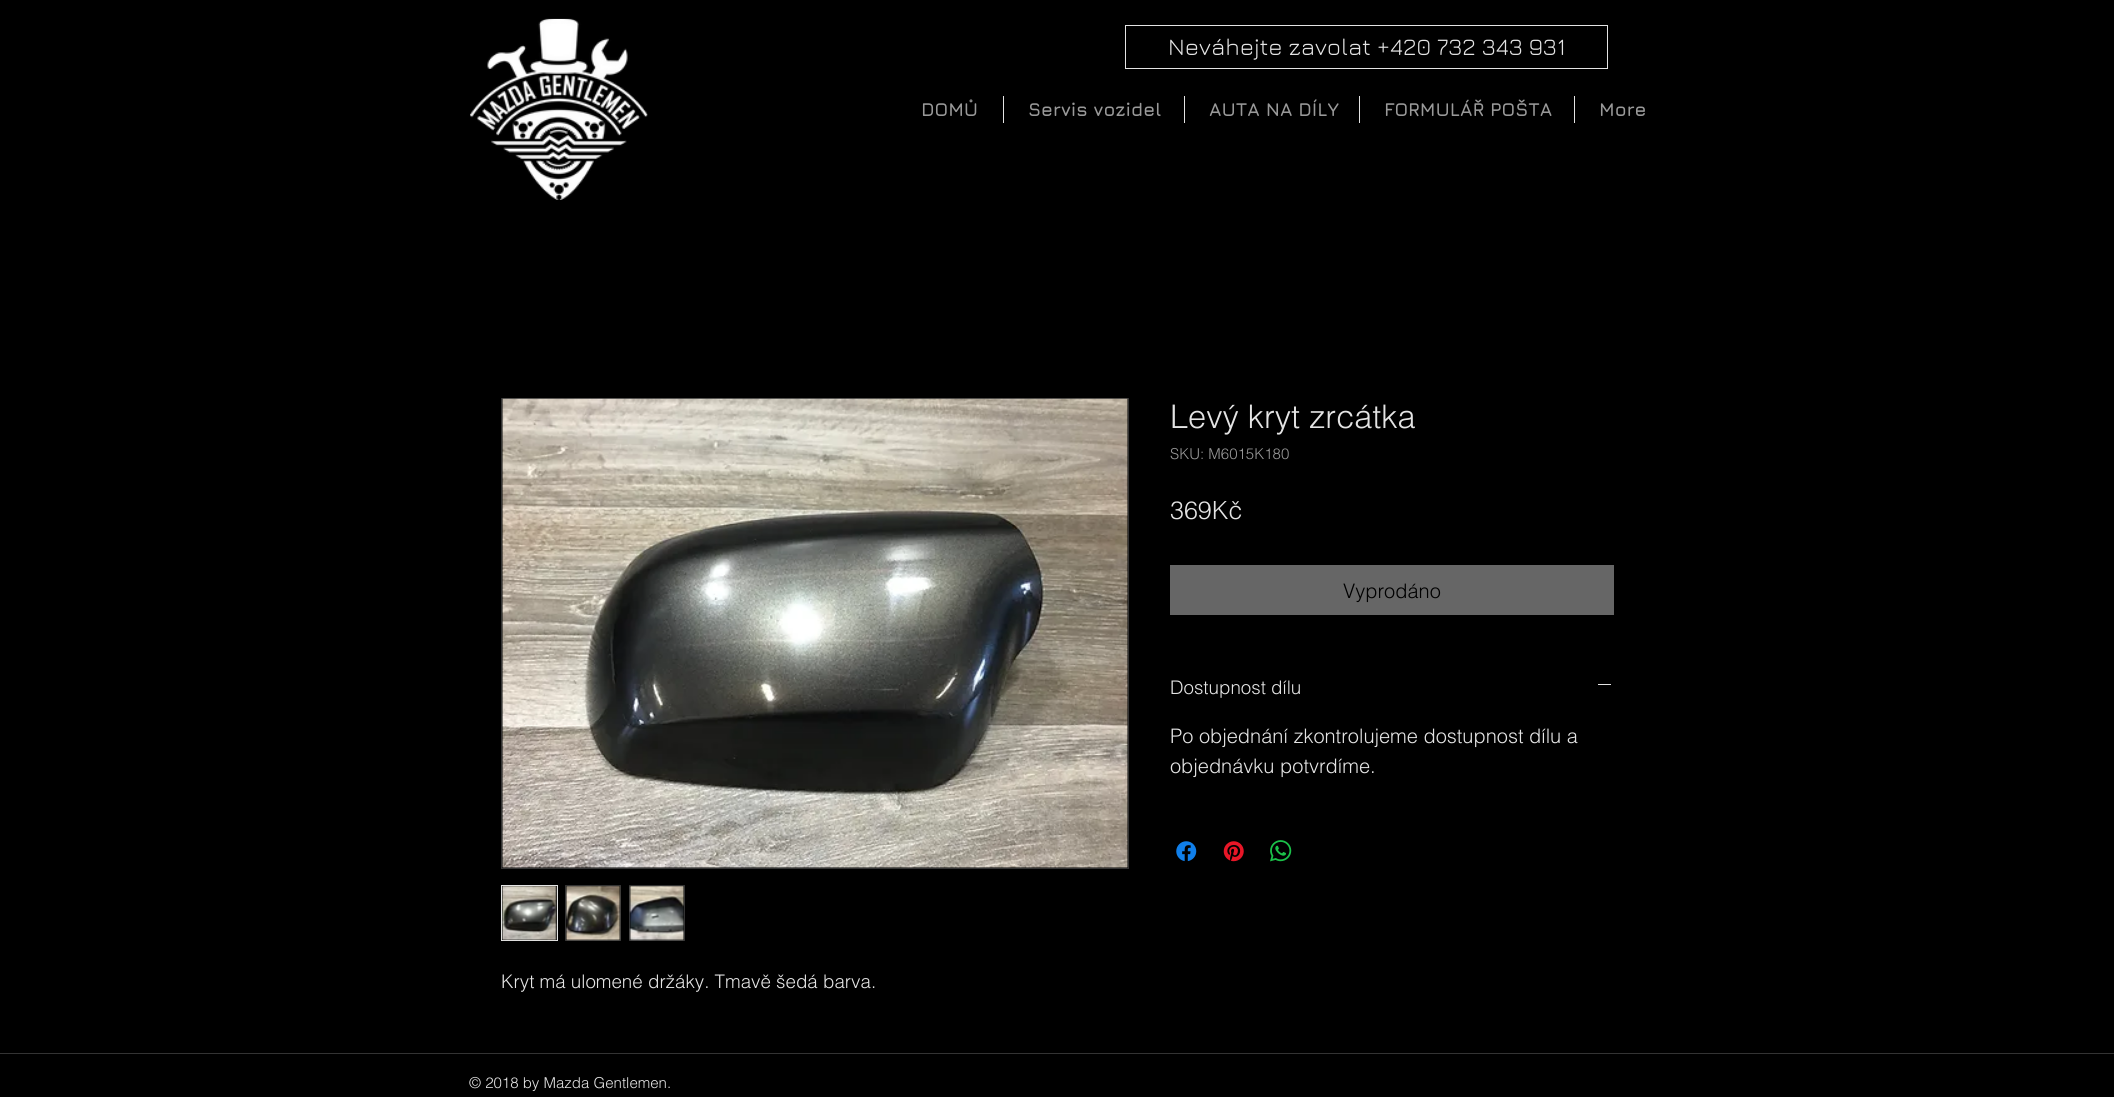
import math
import cairo



def draw_image(context, path, x, y, w, h):
    context.save()
    context.set_source_surface(cairo.ImageSurface.create_from_png(path), x, y)
    context.rectangle(x, y, w, h)
    context.fill()
    context.restore()


def draw(context):
    context.set_source_rgb(0, 0, 0)
    context.paint()
    draw_image(context, "images/1.png", 470, 18, 178, 182)
    context.rectangle(1125.5, 25.5, 482, 43)
    context.set_source_rgb(228 / 255, 228 / 255, 228 / 255)
    context.set_line_width(1)
    context.stroke()
    context.rectangle(1003, 96, 1, 27)
    context.fill()
    context.rectangle(1184, 96, 1, 27)
    context.fill()
    context.rectangle(1359, 96, 1, 27)
    context.fill()
    context.rectangle(1574, 96, 1, 27)
    context.fill()
    context.set_source_rgb(102 / 255, 102 / 255, 102 / 255)
    context.rectangle(1170, 565, 444, 50)
    context.fill()
    context.set_source_rgb(228 / 255, 228 / 255, 228 / 255)
    context.rectangle(1598, 684, 13, 1)
    context.fill()
    draw_image(context, "images/2.png", 1176, 841, 21, 21)
    draw_image(context, "images/3.png", 1223, 841, 21, 21)
    draw_image(context, "images/4.png", 1270, 840, 22, 22)
    context.rectangle(501.5, 398.5, 627, 470)
    context.set_source_rgb(51 / 255, 51 / 255, 51 / 255)
    context.stroke()
    draw_image(context, "images/5.png", 502, 398, 626, 470)
    context.rectangle(501.5, 885.5, 56, 55)
    context.set_source_rgb(228 / 255, 228 / 255, 228 / 255)
    context.stroke()
    draw_image(context, "images/6.png", 502, 886, 55, 55)
    context.rectangle(565.5, 885.5, 55, 55)
    context.set_source_rgb(51 / 255, 51 / 255, 51 / 255)
    context.stroke()
    draw_image(context, "images/7.png", 565, 886, 56, 55)
    context.rectangle(629.5, 885.5, 55, 55)
    context.stroke()
    draw_image(context, "images/8.png", 629, 886, 56, 55)
    context.rectangle(0, 1053, 2114, 1)
    context.fill()
    context.select_font_face("Jura")
    context.set_font_size(23.75)
    context.set_source_rgb(228 / 255, 228 / 255, 228 / 255)
    context.move_to(1168, 55)
    context.show_text("Neváhejte zavolat +420 732 343 931")
    context.select_font_face("Jura", cairo.FontSlant.NORMAL, cairo.FontWeight.BOLD)
    context.set_font_size(18.75)
    context.set_source_rgb(153 / 255, 153 / 255, 153 / 255)
    context.move_to(921, 116)
    context.show_text("DOMŮ")
    context.move_to(1028, 116)
    context.show_text("Servis vozidel")
    context.move_to(1209, 116)
    context.show_text("AUTA NA DÍLY")
    context.move_to(1384, 116)
    context.show_text("FORMULÁŘ POŠTA")
    context.move_to(1599, 116)
    context.show_text("More")
    context.select_font_face("helvetica Light")
    context.set_font_size(32.5)
    context.set_source_rgb(228 / 255, 228 / 255, 228 / 255)
    context.move_to(1170, 428)
    context.show_text("Levý kryt zrcátka")
    context.set_font_size(15)
    context.set_source_rgb(153 / 255, 153 / 255, 153 / 255)
    context.move_to(1170, 459)
    context.show_text("SKU: M6015K180")
    context.set_font_size(25)
    context.set_source_rgb(228 / 255, 228 / 255, 228 / 255)
    context.move_to(1170, 519)
    context.show_text("369Kč")
    context.set_font_size(20)
    context.set_source_rgb(0, 0, 0)
    context.move_to(1343, 598)
    context.show_text("Vyprodáno")
    context.set_font_size(18.75)
    context.set_source_rgb(228 / 255, 228 / 255, 228 / 255)
    context.move_to(1170, 694)
    context.show_text("Dostupnost dílu")
    context.set_font_size(20)
    context.move_to(1170, 743)
    context.show_text("Po objednání zkontrolujeme dostupnost dílu a")
    context.move_to(1170, 773)
    context.show_text("objednávku potvrdíme.")
    context.set_font_size(18.75)
    context.move_to(501, 988)
    context.show_text("Kryt má ulomené držáky. Tmavě šedá barva.")
    context.set_font_size(15)
    context.move_to(469, 1088)
    context.show_text("© 2018 by Mazda Gentlemen.")


surface = cairo.ImageSurface(cairo.Format.RGB24, 2114, 1097)
context = cairo.Context(surface)
options = cairo.FontOptions()
options.set_hint_metrics(cairo.HintMetrics.OFF)
options.set_hint_style(cairo.HintStyle.NONE)
context.set_font_options(options)
context.set_miter_limit(4)
draw(context)
surface.write_to_png("out.png")
